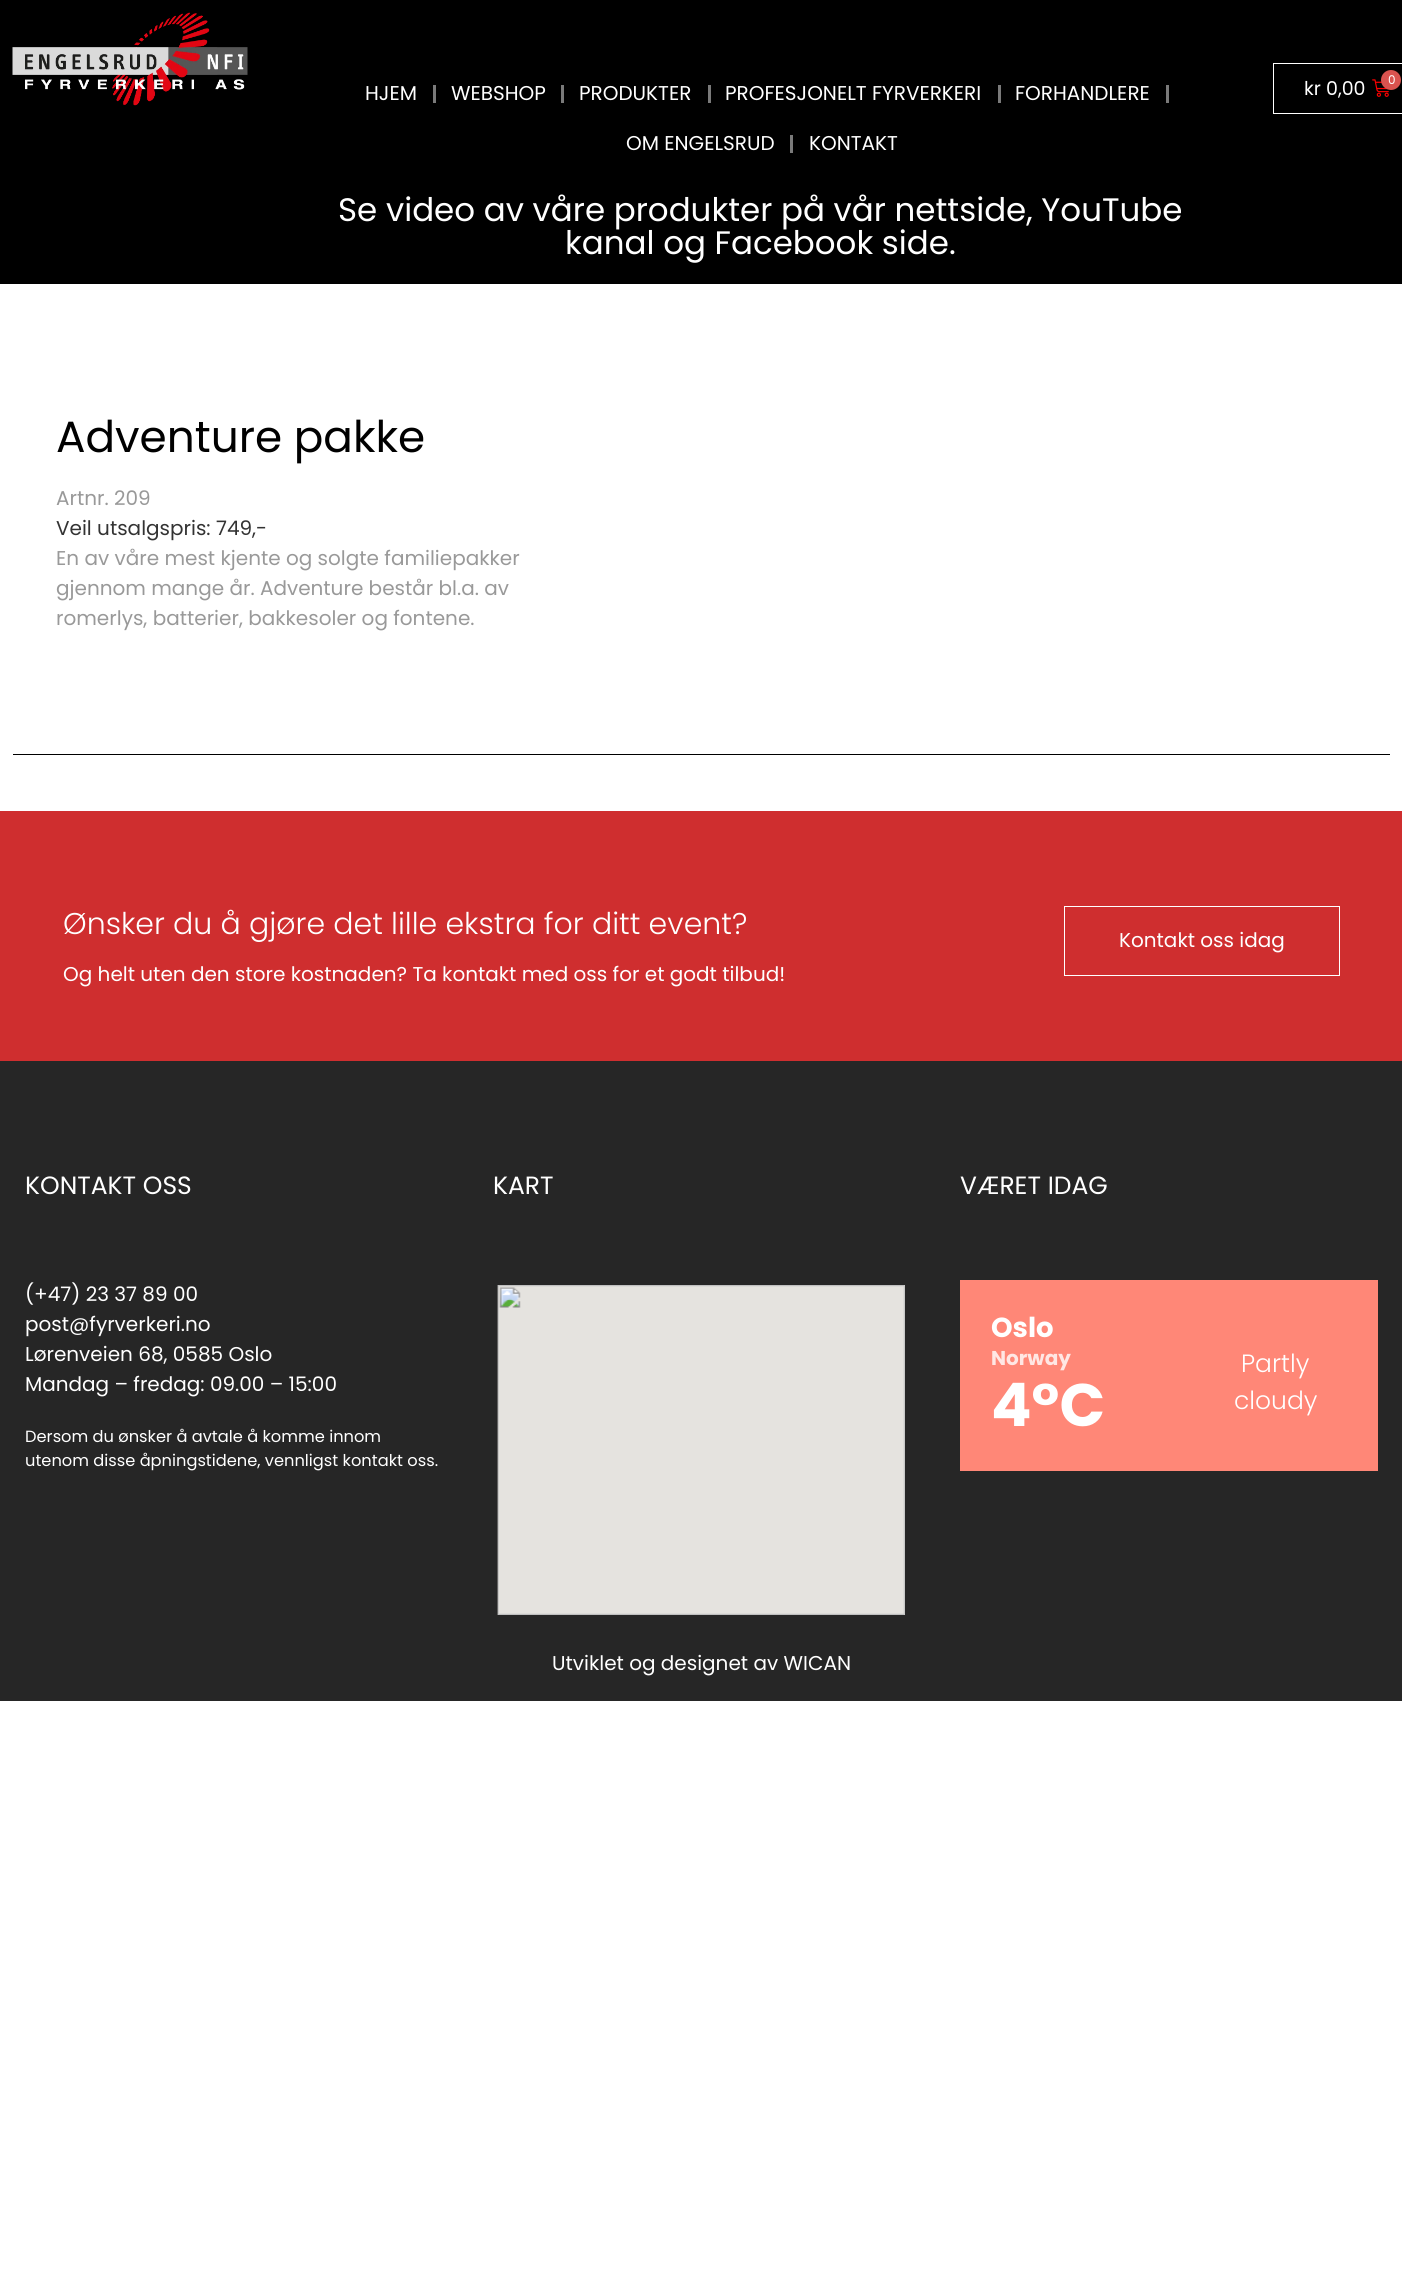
import math
import cairo



def draw_image(context, path, x, y, w, h):
    context.save()
    context.set_source_surface(cairo.ImageSurface.create_from_png(path), x, y)
    context.rectangle(x, y, w, h)
    context.fill()
    context.restore()


def draw(context):
    context.set_source_rgb(1, 1, 1)
    context.paint()
    context.set_source_rgb(0, 0, 0)
    context.rectangle(0, 0, 1402, 284)
    context.fill()
    draw_image(context, "images/1.png", 12, 12, 236, 94)
    context.set_source_rgb(122 / 255, 122 / 255, 122 / 255)
    context.rectangle(433, 85, 3, 18)
    context.fill()
    context.rectangle(561, 85, 3, 18)
    context.fill()
    context.rectangle(708, 85, 3, 18)
    context.fill()
    context.rectangle(998, 85, 3, 18)
    context.fill()
    context.rectangle(1166, 85, 3, 18)
    context.fill()
    context.rectangle(790, 135, 3, 18)
    context.fill()
    context.rectangle(1273.5, 63.5, 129, 50)
    context.set_source_rgb(1, 1, 1)
    context.set_line_width(1)
    context.stroke()
    draw_image(context, "images/2.png", 1372, 79, 17, 18)
    context.set_source_rgb(217 / 255, 83 / 255, 79 / 255)
    context.arc(1391, 80, 10, 0, 2 * math.pi)
    context.fill()
    context.set_source_rgb(0, 0, 0)
    context.rectangle(13, 754, 1377, 1)
    context.fill()
    context.set_source_rgb(207 / 255, 46 / 255, 47 / 255)
    context.rectangle(0, 811, 1402, 250)
    context.fill()
    context.rectangle(1064.5, 906.5, 275, 69)
    context.set_source_rgb(1, 1, 1)
    context.stroke()
    context.set_source_rgb(38 / 255, 38 / 255, 38 / 255)
    context.rectangle(0, 1061, 1402, 640)
    context.fill()
    draw_image(context, "images/3.png", 497, 1285, 408, 330)
    context.set_source_rgb(1, 135 / 255, 119 / 255)
    context.rectangle(960, 1280, 418, 191)
    context.fill()
    context.select_font_face("Poppins")
    context.set_font_size(20)
    context.set_source_rgb(1, 1, 1)
    context.move_to(365, 100)
    context.show_text("HJEM")
    context.move_to(451, 100)
    context.show_text("WEBSHOP")
    context.move_to(579, 100)
    context.show_text("PRODUKTER")
    context.move_to(725, 100)
    context.show_text("PROFESJONELT FYRVERKERI")
    context.move_to(1015, 100)
    context.show_text("FORHANDLERE")
    context.move_to(626, 150)
    context.show_text("OM ENGELSRUD")
    context.move_to(809, 150)
    context.show_text("KONTAKT")
    context.set_font_size(32.5)
    context.move_to(338, 221)
    context.show_text("Se video av våre produkter på vår nettside, YouTube")
    context.move_to(565, 254)
    context.show_text("kanal og Facebook side.")
    context.set_font_size(12)
    context.move_to(1388, 84)
    context.show_text("0")
    context.set_font_size(19)
    context.move_to(1304, 95)
    context.show_text("kr 0,00")
    context.set_font_size(43.75)
    context.set_source_rgb(0, 0, 0)
    context.move_to(56, 452)
    context.show_text("Adventure pakke")
    context.set_font_size(20)
    context.set_source_rgb(153 / 255, 153 / 255, 153 / 255)
    context.move_to(56, 505)
    context.show_text("Artnr. 209")
    context.set_source_rgb(51 / 255, 51 / 255, 51 / 255)
    context.move_to(56, 535)
    context.show_text("Veil utsalgspris: 749,-")
    context.set_source_rgb(153 / 255, 153 / 255, 153 / 255)
    context.move_to(56, 565)
    context.show_text("En av våre mest kjente og solgte familiepakker")
    context.move_to(56, 595)
    context.show_text("gjennom mange år. Adventure består bl.a. av")
    context.move_to(56, 625)
    context.show_text("romerlys, batterier, bakkesoler og fontene.")
    context.select_font_face("Poppins Light")
    context.set_font_size(30)
    context.set_source_rgb(1, 1, 1)
    context.move_to(63, 934)
    context.show_text("Ønsker du å gjøre det lille ekstra for ditt event?")
    context.select_font_face("Poppins")
    context.set_font_size(20)
    context.move_to(63, 981)
    context.show_text("Og helt uten den store kostnaden? Ta kontakt med oss for et godt tilbud!")
    context.move_to(1119, 947)
    context.show_text("Kontakt oss idag")
    context.set_font_size(25)
    context.move_to(25, 1194)
    context.show_text("KONTAKT OSS")
    context.set_font_size(20)
    context.move_to(25, 1301)
    context.show_text("(+47) 23 37 89 00")
    context.move_to(25, 1331)
    context.show_text("post@fyrverkeri.no")
    context.move_to(25, 1361)
    context.show_text("Lørenveien 68, 0585 Oslo")
    context.move_to(25, 1391)
    context.show_text("Mandag – fredag: 09.00 – 15:00")
    context.set_font_size(16.25)
    context.move_to(25, 1442)
    context.show_text("Dersom du ønsker å avtale å komme innom")
    context.move_to(25, 1466)
    context.show_text("utenom disse åpningstidene, vennligst kontakt oss.")
    context.set_font_size(25)
    context.move_to(493, 1194)
    context.show_text("KART")
    context.move_to(960, 1194)
    context.show_text("VÆRET IDAG")
    context.select_font_face("Poppins", cairo.FontSlant.NORMAL, cairo.FontWeight.BOLD)
    context.set_font_size(27.5)
    context.move_to(991, 1337)
    context.show_text("Oslo")
    context.set_font_size(20)
    context.set_source_rgb(1, 231 / 255, 228 / 255)
    context.move_to(991, 1365)
    context.show_text("Norway")
    context.set_font_size(60)
    context.set_source_rgb(1, 1, 1)
    context.move_to(991, 1426)
    context.show_text("4°C")
    context.select_font_face("Poppins Light")
    context.set_font_size(25)
    context.move_to(1241, 1372)
    context.show_text("Partly")
    context.move_to(1234, 1409)
    context.show_text("cloudy")
    context.select_font_face("Poppins")
    context.set_font_size(20)
    context.move_to(552, 1670)
    context.show_text("Utviklet og designet av WICAN")


surface = cairo.ImageSurface(cairo.Format.RGB24, 1402, 2296)
context = cairo.Context(surface)
options = cairo.FontOptions()
options.set_hint_metrics(cairo.HintMetrics.OFF)
options.set_hint_style(cairo.HintStyle.NONE)
context.set_font_options(options)
context.set_miter_limit(4)
draw(context)
surface.write_to_png("out.png")
